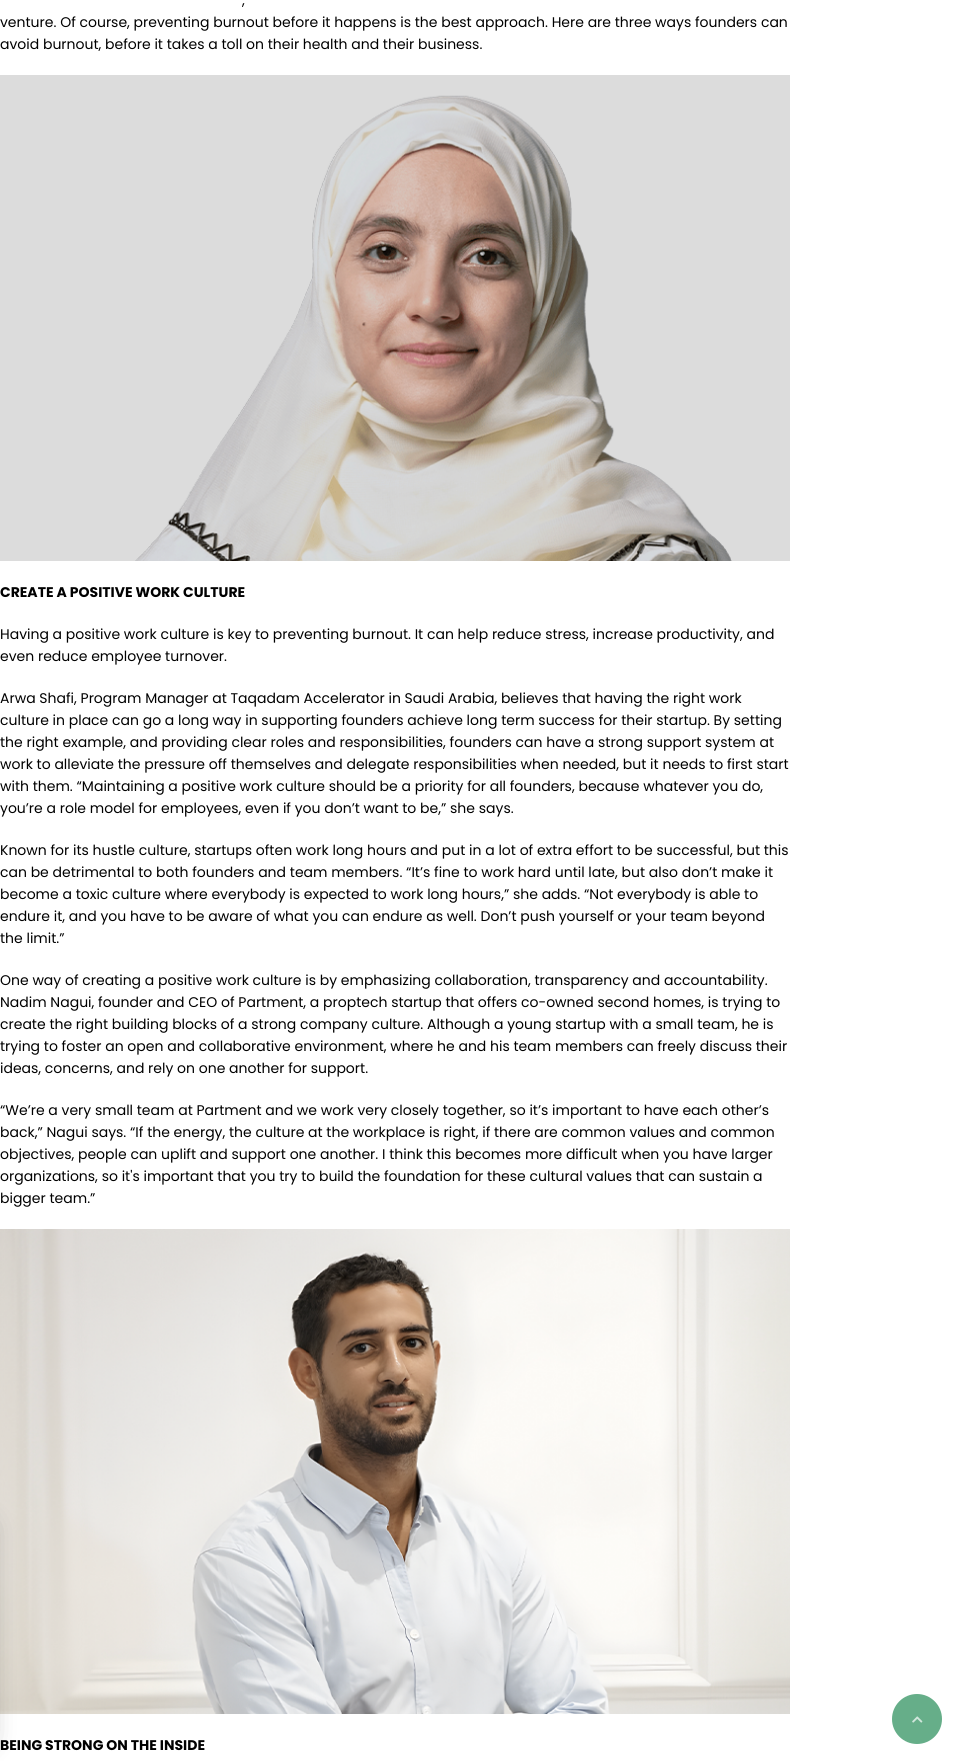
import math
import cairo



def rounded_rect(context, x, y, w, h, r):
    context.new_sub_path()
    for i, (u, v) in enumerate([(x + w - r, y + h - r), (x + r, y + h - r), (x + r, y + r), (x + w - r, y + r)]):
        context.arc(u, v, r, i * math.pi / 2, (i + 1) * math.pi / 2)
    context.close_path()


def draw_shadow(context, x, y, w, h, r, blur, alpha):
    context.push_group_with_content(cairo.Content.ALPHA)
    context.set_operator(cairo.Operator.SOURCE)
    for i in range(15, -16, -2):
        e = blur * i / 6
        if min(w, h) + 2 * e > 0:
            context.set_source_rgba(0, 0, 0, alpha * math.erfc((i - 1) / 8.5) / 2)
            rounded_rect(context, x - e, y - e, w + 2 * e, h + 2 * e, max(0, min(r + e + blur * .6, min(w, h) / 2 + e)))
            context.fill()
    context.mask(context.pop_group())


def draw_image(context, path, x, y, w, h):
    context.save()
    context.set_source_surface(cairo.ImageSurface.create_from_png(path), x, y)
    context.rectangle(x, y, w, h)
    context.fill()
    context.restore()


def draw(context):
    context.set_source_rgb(1, 1, 1)
    context.paint()
    draw_image(context, "images/1.png", 0, 75, 790, 486)
    draw_image(context, "images/2.png", 0, 1229, 790, 485)
    context.set_source_rgb(0, 0, 0)
    draw_shadow(context, -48, 1519, 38, 227, 10, 12.5, 0.29)
    context.set_source_rgb(102 / 255, 174 / 255, 137 / 255)
    context.arc(917, 1719, 25, 0, 2 * math.pi)
    context.fill()
    draw_image(context, "images/3.png", 912, 1716, 11, 7)
    context.select_font_face("Poppins")
    context.set_font_size(14)
    context.set_source_rgb(0, 0, 0)
    context.move_to(242, 5)
    context.show_text(",")
    context.move_to(0, 27)
    context.show_text("venture. Of course, preventing burnout before it happens is the best approach. Here are three ways founders can")
    context.move_to(0, 49)
    context.show_text("avoid burnout, before it takes a toll on their health and their business.")
    context.select_font_face("Poppins", cairo.FontSlant.NORMAL, cairo.FontWeight.BOLD)
    context.move_to(0, 597)
    context.show_text("CREATE A POSITIVE WORK CULTURE")
    context.select_font_face("Poppins")
    context.move_to(0, 639)
    context.show_text("Having a positive work culture is key to preventing burnout. It can help reduce stress, increase productivity, and")
    context.move_to(0, 661)
    context.show_text("even reduce employee turnover.")
    context.move_to(0, 703)
    context.show_text("Arwa Shafi, Program Manager at Taqadam Accelerator in Saudi Arabia, believes that having the right work")
    context.move_to(0, 725)
    context.show_text("culture in place can go a long way in supporting founders achieve long term success for their startup. By setting")
    context.move_to(0, 747)
    context.show_text("the right example, and providing clear roles and responsibilities, founders can have a strong support system at")
    context.move_to(0, 769)
    context.show_text("work to alleviate the pressure off themselves and delegate responsibilities when needed, but it needs to first start")
    context.move_to(0, 791)
    context.show_text("with them. “Maintaining a positive work culture should be a priority for all founders, because whatever you do,")
    context.move_to(0, 813)
    context.show_text("you’re a role model for employees, even if you don’t want to be,” she says.")
    context.move_to(0, 855)
    context.show_text("Known for its hustle culture, startups often work long hours and put in a lot of extra effort to be successful, but this")
    context.move_to(0, 877)
    context.show_text("can be detrimental to both founders and team members. “It’s fine to work hard until late, but also don’t make it")
    context.move_to(0, 899)
    context.show_text("become a toxic culture where everybody is expected to work long hours,” she adds. “Not everybody is able to")
    context.move_to(0, 921)
    context.show_text("endure it, and you have to be aware of what you can endure as well. Don’t push yourself or your team beyond")
    context.move_to(0, 943)
    context.show_text("the limit.”")
    context.move_to(0, 985)
    context.show_text("One way of creating a positive work culture is by emphasizing collaboration, transparency and accountability.")
    context.move_to(0, 1007)
    context.show_text("Nadim Nagui, founder and CEO of Partment, a proptech startup that offers co-owned second homes, is trying to")
    context.move_to(0, 1029)
    context.show_text("create the right building blocks of a strong company culture. Although a young startup with a small team, he is")
    context.move_to(0, 1051)
    context.show_text("trying to foster an open and collaborative environment, where he and his team members can freely discuss their")
    context.move_to(0, 1073)
    context.show_text("ideas, concerns, and rely on one another for support.")
    context.move_to(0, 1115)
    context.show_text("“We’re a very small team at Partment and we work very closely together, so it’s important to have each other’s")
    context.move_to(0, 1137)
    context.show_text("back,” Nagui says. “If the energy, the culture at the workplace is right, if there are common values and common")
    context.move_to(0, 1159)
    context.show_text("objectives, people can uplift and support one another. I think this becomes more difficult when you have larger")
    context.move_to(0, 1181)
    context.show_text("organizations, so it's important that you try to build the foundation for these cultural values that can sustain a")
    context.move_to(0, 1203)
    context.show_text("bigger team.”")
    context.select_font_face("Poppins", cairo.FontSlant.NORMAL, cairo.FontWeight.BOLD)
    context.move_to(0, 1750)
    context.show_text("BEING STRONG ON THE INSIDE")


surface = cairo.ImageSurface(cairo.Format.RGB24, 959, 1761)
context = cairo.Context(surface)
options = cairo.FontOptions()
options.set_hint_metrics(cairo.HintMetrics.OFF)
options.set_hint_style(cairo.HintStyle.NONE)
context.set_font_options(options)
context.set_miter_limit(4)
draw(context)
surface.write_to_png("out.png")
